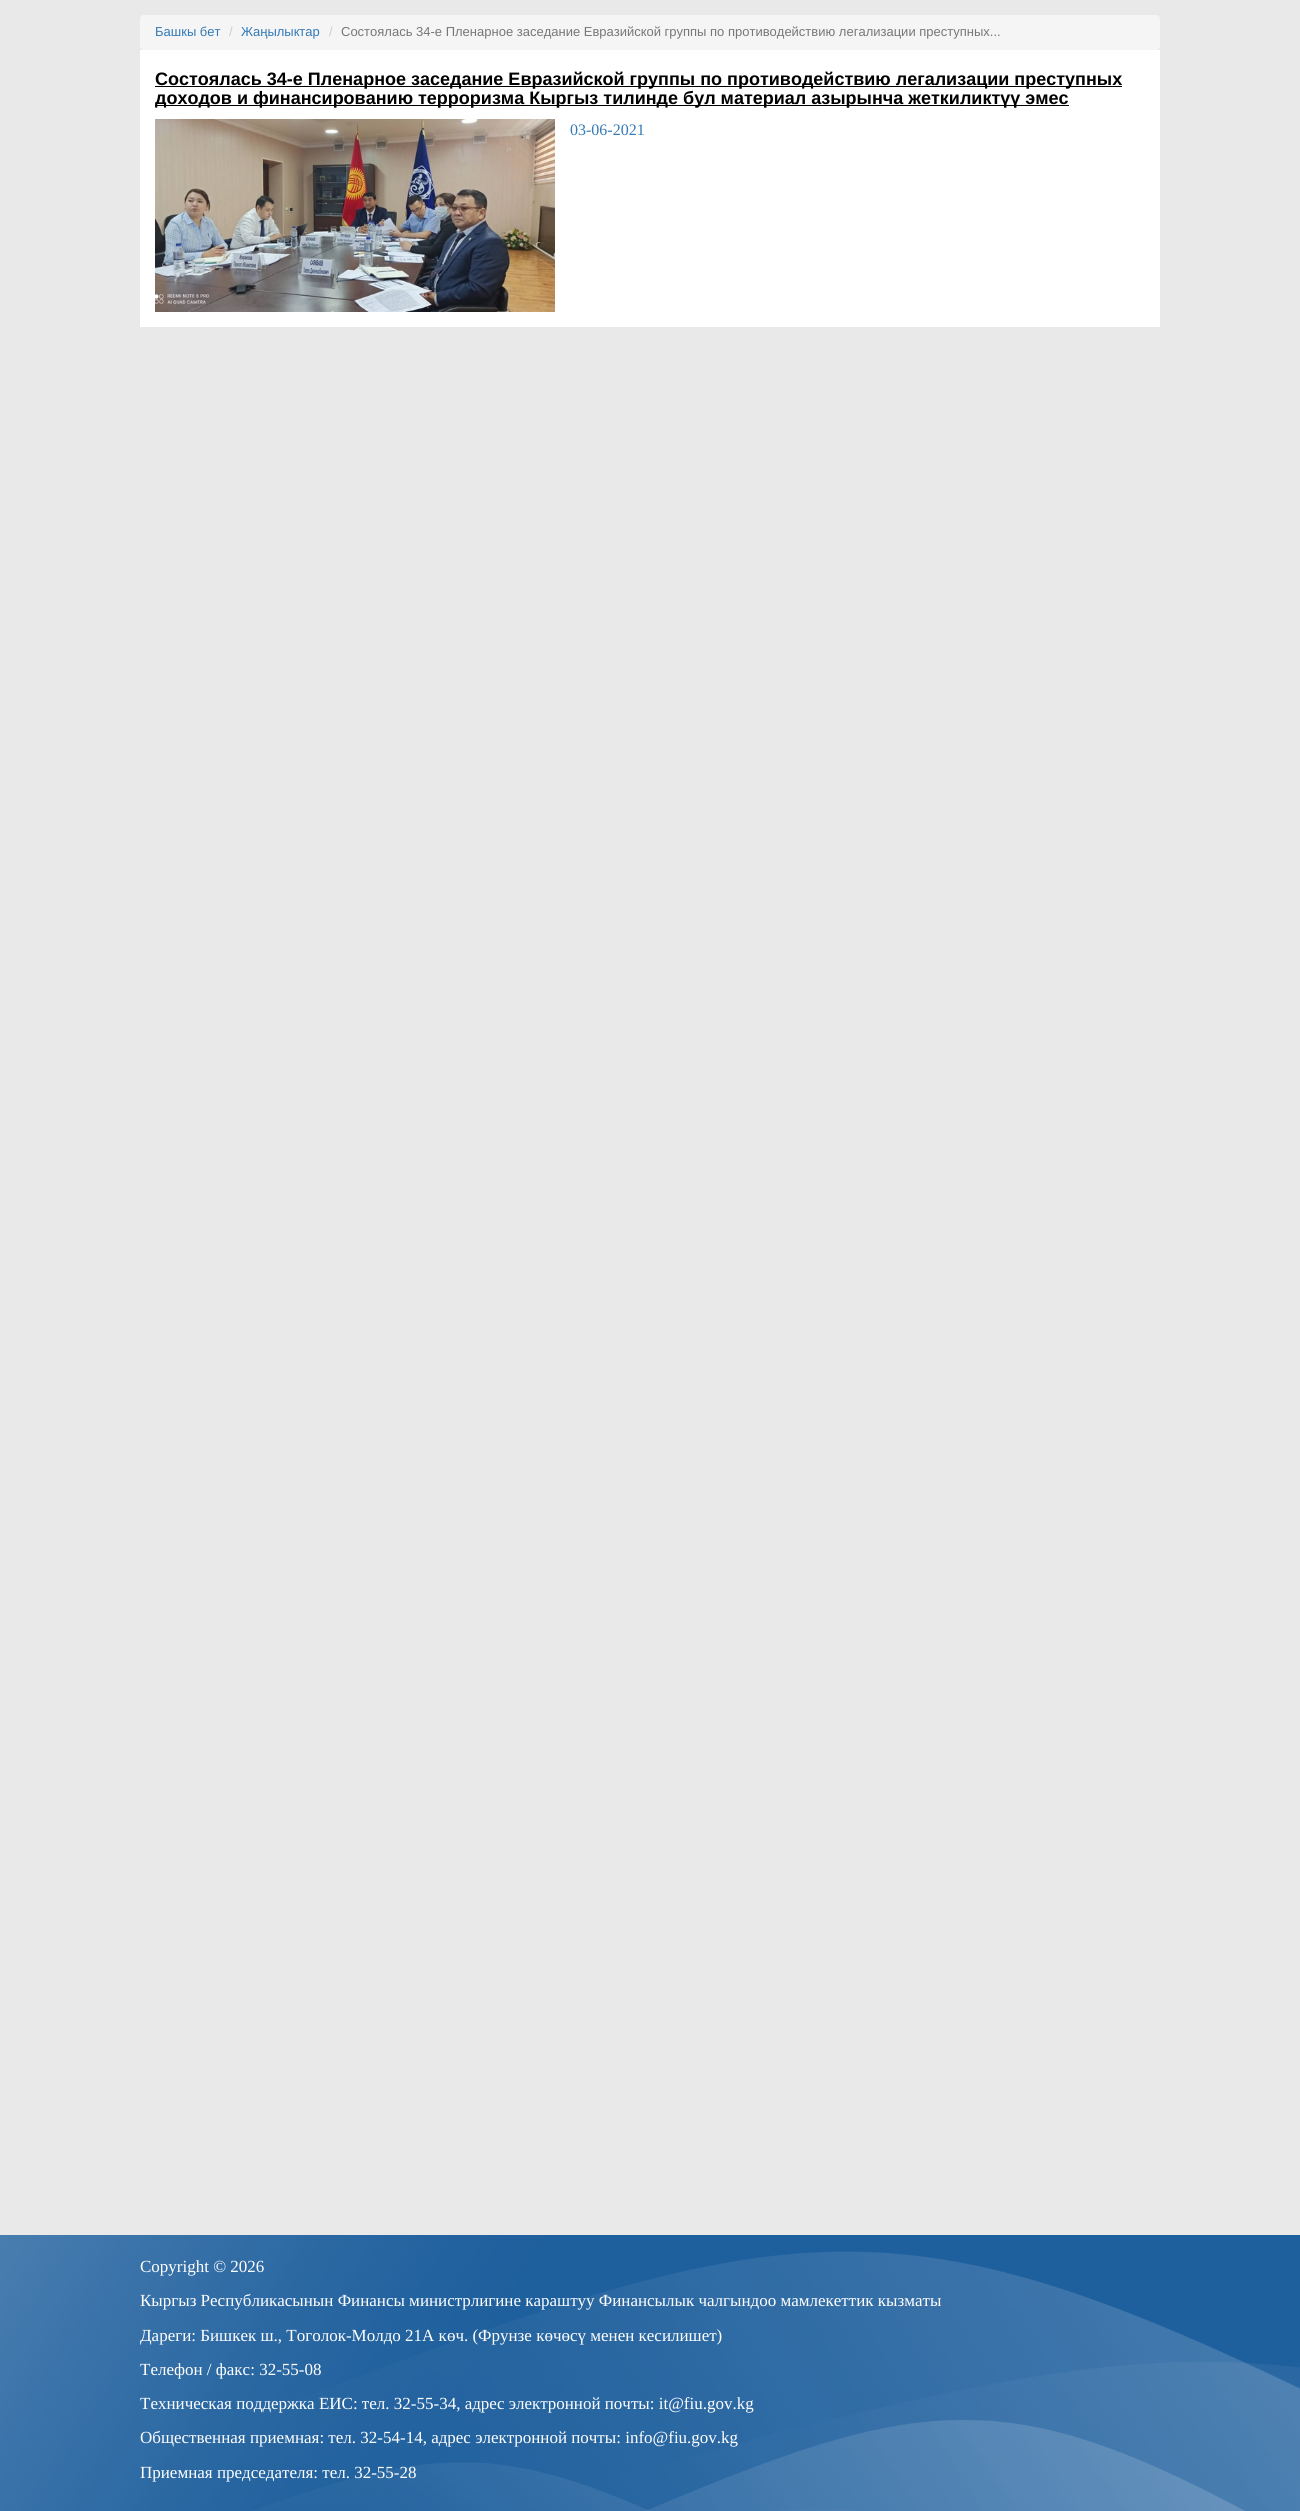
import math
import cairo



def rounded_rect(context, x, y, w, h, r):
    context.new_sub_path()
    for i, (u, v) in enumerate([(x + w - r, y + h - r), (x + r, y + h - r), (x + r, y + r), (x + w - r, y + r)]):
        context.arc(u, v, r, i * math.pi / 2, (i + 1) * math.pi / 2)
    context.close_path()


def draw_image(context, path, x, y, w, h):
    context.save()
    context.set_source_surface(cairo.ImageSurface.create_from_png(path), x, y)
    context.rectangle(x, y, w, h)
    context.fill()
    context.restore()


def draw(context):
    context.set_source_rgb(233 / 255, 233 / 255, 233 / 255)
    context.paint()
    context.set_source_rgb(245 / 255, 245 / 255, 245 / 255)
    rounded_rect(context, 140, 15, 1020, 35, 4)
    context.fill()
    context.set_source_rgb(1, 1, 1)
    context.rectangle(140, 50, 1020, 277)
    context.fill()
    context.set_source_rgb(0, 0, 0)
    context.rectangle(155, 86, 967, 1)
    context.fill()
    context.rectangle(155, 105, 914, 1)
    context.fill()
    draw_image(context, "images/1.png", 155, 119, 400, 193)
    context.set_source_rgb(30 / 255, 95 / 255, 157 / 255)
    context.rectangle(0, 2235, 1300, 276)
    context.fill()
    draw_image(context, "images/2.png", 0, 2235, 1300, 276)
    context.select_font_face("Liberation Sans")
    context.set_font_size(13)
    context.set_source_rgb(51 / 255, 122 / 255, 183 / 255)
    context.move_to(155, 36)
    context.show_text("Башкы бет")
    context.set_source_rgb(204 / 255, 204 / 255, 204 / 255)
    context.move_to(229, 36)
    context.show_text("/")
    context.set_source_rgb(51 / 255, 122 / 255, 183 / 255)
    context.move_to(241, 36)
    context.show_text("Жаңылыктар")
    context.set_source_rgb(204 / 255, 204 / 255, 204 / 255)
    context.move_to(329, 36)
    context.show_text("/")
    context.set_source_rgb(119 / 255, 119 / 255, 119 / 255)
    context.move_to(341, 36)
    context.show_text("Состоялась 34-е Пленарное заседание Евразийской группы по противодействию легализации преступных...")
    context.select_font_face("Liberation Sans", cairo.FontSlant.NORMAL, cairo.FontWeight.BOLD)
    context.set_font_size(18)
    context.set_source_rgb(0, 0, 0)
    context.move_to(155, 85)
    context.show_text("Состоялась 34-е Пленарное заседание Евразийской группы по противодействию легализации преступных")
    context.move_to(155, 104)
    context.show_text("доходов и финансированию терроризма Кыргыз тилинде бул материал азырынча жеткиликтүү эмес")
    context.select_font_face("Liberation Serif")
    context.set_font_size(16)
    context.set_source_rgb(51 / 255, 122 / 255, 183 / 255)
    context.move_to(570, 135)
    context.show_text("03-06-2021")
    context.set_font_size(17)
    context.set_source_rgb(1, 1, 1)
    context.move_to(140, 2272)
    context.show_text("Copyright © 2026")
    context.move_to(140, 2306)
    context.show_text("Кыргыз Республикасынын Финансы министрлигине караштуу Финансылык чалгындоо мамлекеттик кызматы")
    context.move_to(140, 2341)
    context.show_text("Дареги: Бишкек ш., Тоголок-Молдо 21А көч. (Фрунзе көчөсү менен кесилишет)")
    context.move_to(140, 2375)
    context.show_text("Телефон / факс: 32-55-08")
    context.move_to(140, 2409)
    context.show_text("Техническая поддержка ЕИС: тел. 32-55-34, адрес электронной почты: it@fiu.gov.kg")
    context.move_to(140, 2443)
    context.show_text("Общественная приемная: тел. 32-54-14, адрес электронной почты: info@fiu.gov.kg")
    context.move_to(140, 2478)
    context.show_text("Приемная председателя: тел. 32-55-28")


surface = cairo.ImageSurface(cairo.Format.RGB24, 1300, 2511)
context = cairo.Context(surface)
options = cairo.FontOptions()
options.set_hint_metrics(cairo.HintMetrics.OFF)
options.set_hint_style(cairo.HintStyle.NONE)
context.set_font_options(options)
context.set_miter_limit(4)
draw(context)
surface.write_to_png("out.png")
